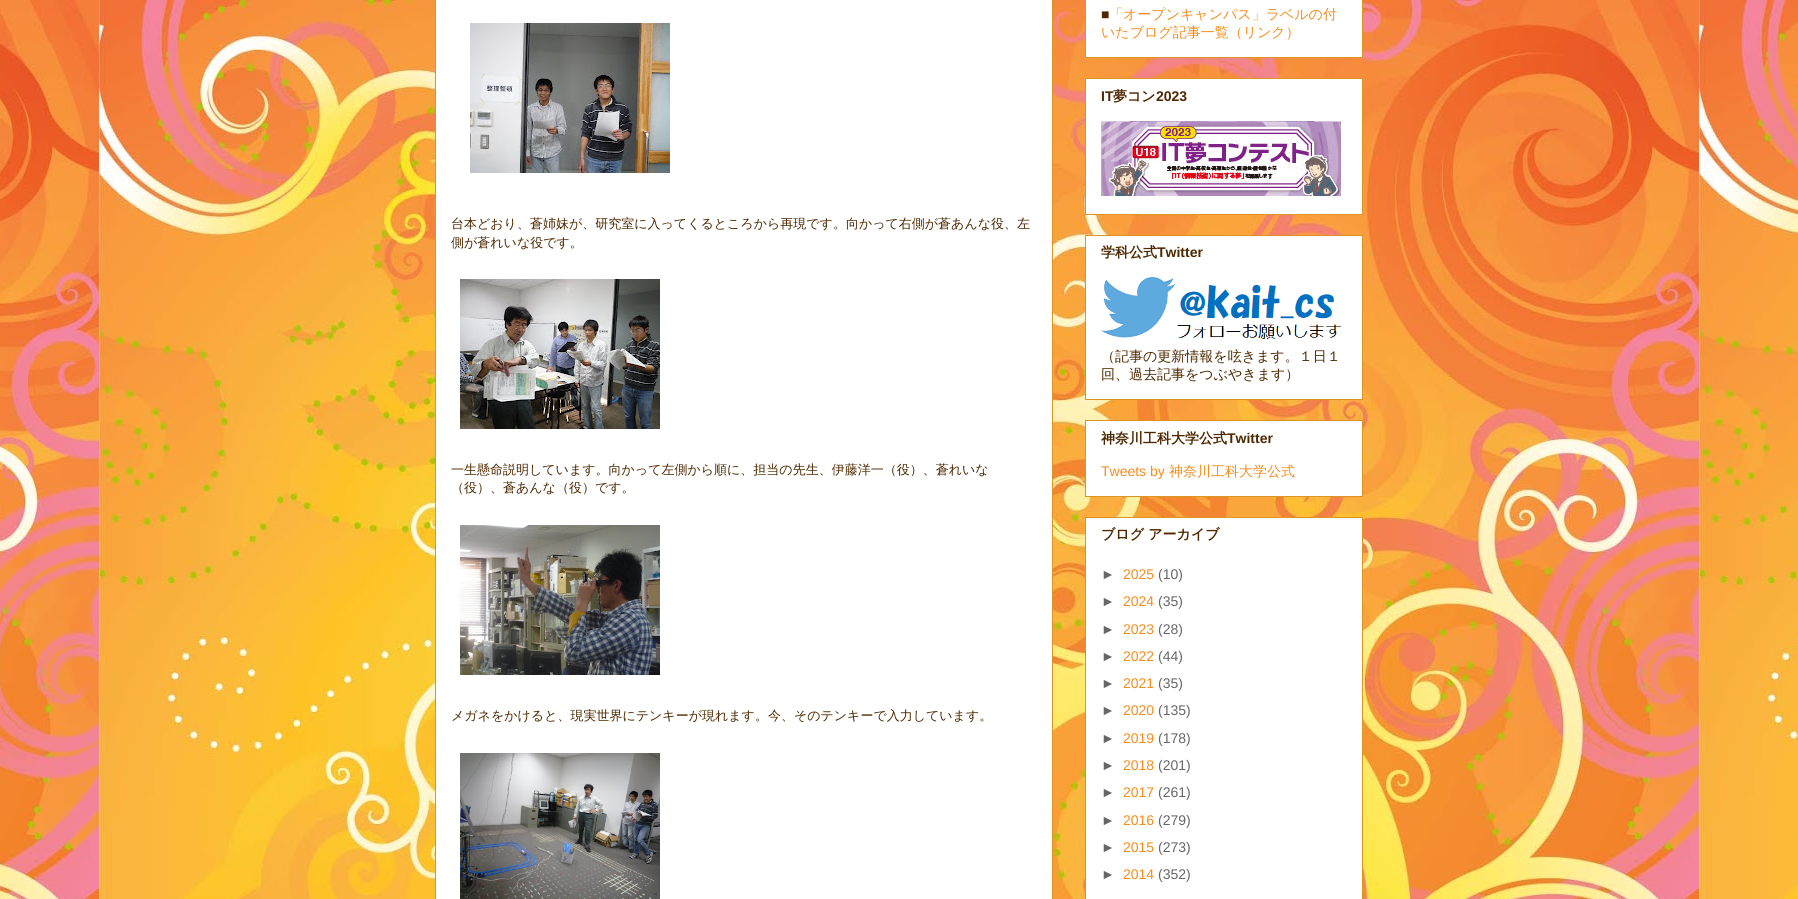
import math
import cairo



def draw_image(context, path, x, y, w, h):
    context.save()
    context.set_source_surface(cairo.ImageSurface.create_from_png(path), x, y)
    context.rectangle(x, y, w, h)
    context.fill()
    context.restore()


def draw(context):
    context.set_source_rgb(1, 1, 1)
    context.paint()
    draw_image(context, "images/1.png", 0, 0, 1798, 899)
    context.set_source_rgb(1, 1, 1)
    context.rectangle(435.5, -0.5, 617, 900)
    context.fill_preserve()
    context.set_source_rgb(220 / 255, 149 / 255, 34 / 255)
    context.set_line_width(1)
    context.stroke()
    draw_image(context, "images/2.png", 470, 23, 200, 150)
    draw_image(context, "images/3.png", 460, 279, 200, 150)
    draw_image(context, "images/4.png", 460, 525, 200, 150)
    draw_image(context, "images/5.png", 460, 753, 200, 146)
    context.set_source_rgb(1, 1, 1)
    context.rectangle(1085.5, -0.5, 277, 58)
    context.fill_preserve()
    context.set_source_rgb(220 / 255, 149 / 255, 34 / 255)
    context.stroke()
    context.set_source_rgb(1, 1, 1)
    context.rectangle(1085.5, 78.5, 277, 136)
    context.fill_preserve()
    context.set_source_rgb(220 / 255, 149 / 255, 34 / 255)
    context.stroke()
    draw_image(context, "images/6.png", 1101, 121, 240, 75)
    context.set_source_rgb(1, 1, 1)
    context.rectangle(1085.5, 235.5, 277, 164)
    context.fill_preserve()
    context.set_source_rgb(220 / 255, 149 / 255, 34 / 255)
    context.stroke()
    draw_image(context, "images/7.png", 1101, 277, 241, 62)
    context.set_source_rgb(1, 1, 1)
    context.rectangle(1085.5, 420.5, 277, 76)
    context.fill_preserve()
    context.set_source_rgb(220 / 255, 149 / 255, 34 / 255)
    context.stroke()
    context.set_source_rgb(1, 1, 1)
    context.rectangle(1085.5, 517.5, 277, 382)
    context.fill_preserve()
    context.set_source_rgb(220 / 255, 149 / 255, 34 / 255)
    context.stroke()
    context.select_font_face("WenQuanYi Zen Hei Medium")
    context.set_font_size(13)
    context.set_source_rgb(78 / 255, 40 / 255, 0)
    context.move_to(451, 228)
    context.show_text("台本どおり、蒼姉妹が、研究室に入ってくるところから再現です。向かって右側が蒼あんな役、左")
    context.move_to(451, 247)
    context.show_text("側が蒼れいな役です。")
    context.move_to(451, 474)
    context.show_text("一生懸命説明しています。向かって左側から順に、担当の先生、伊藤洋一（役）、蒼れいな")
    context.move_to(451, 492)
    context.show_text("（役）、蒼あんな（役）です。")
    context.move_to(451, 720)
    context.show_text("メガネをかけると、現実世界にテンキーが現れます。今、そのテンキーで入力しています。")
    context.select_font_face("Liberation Sans")
    context.set_font_size(14)
    context.move_to(1101, 19)
    context.show_text("■")
    context.select_font_face("WenQuanYi Zen Hei Medium")
    context.set_source_rgb(244 / 255, 141 / 255, 29 / 255)
    context.move_to(1109, 19)
    context.show_text("「オープンキャンパス」ラベルの付")
    context.move_to(1101, 37)
    context.show_text("いたブログ記事一覧（リンク）")
    context.select_font_face("Liberation Sans", cairo.FontSlant.NORMAL, cairo.FontWeight.BOLD)
    context.set_source_rgb(78 / 255, 40 / 255, 0)
    context.move_to(1101, 101)
    context.show_text("IT")
    context.select_font_face("WenQuanYi Zen Hei", cairo.FontSlant.NORMAL, cairo.FontWeight.BOLD)
    context.move_to(1113, 101)
    context.show_text("夢コン")
    context.select_font_face("Liberation Sans", cairo.FontSlant.NORMAL, cairo.FontWeight.BOLD)
    context.move_to(1156, 101)
    context.show_text("2023")
    context.select_font_face("WenQuanYi Zen Hei", cairo.FontSlant.NORMAL, cairo.FontWeight.BOLD)
    context.move_to(1101, 257)
    context.show_text("学科公式")
    context.select_font_face("Liberation Sans", cairo.FontSlant.NORMAL, cairo.FontWeight.BOLD)
    context.move_to(1157, 257)
    context.show_text("Twitter")
    context.select_font_face("WenQuanYi Zen Hei Medium")
    context.move_to(1101, 361)
    context.show_text("（記事の更新情報を呟きます。１日１")
    context.move_to(1101, 379)
    context.show_text("回、過去記事をつぶやきます）")
    context.select_font_face("WenQuanYi Zen Hei", cairo.FontSlant.NORMAL, cairo.FontWeight.BOLD)
    context.move_to(1101, 443)
    context.show_text("神奈川工科大学公式")
    context.select_font_face("Liberation Sans", cairo.FontSlant.NORMAL, cairo.FontWeight.BOLD)
    context.move_to(1227, 443)
    context.show_text("Twitter")
    context.select_font_face("Liberation Sans")
    context.set_source_rgb(244 / 255, 141 / 255, 29 / 255)
    context.move_to(1101, 476)
    context.show_text("Tweets by")
    context.select_font_face("WenQuanYi Zen Hei Medium")
    context.move_to(1169, 476)
    context.show_text("神奈川工科大学公式")
    context.select_font_face("WenQuanYi Zen Hei", cairo.FontSlant.NORMAL, cairo.FontWeight.BOLD)
    context.set_source_rgb(78 / 255, 40 / 255, 0)
    context.move_to(1101, 539)
    context.show_text("ブログ アーカイブ")
    context.select_font_face("Liberation Sans")
    context.set_source_rgb(102 / 255, 102 / 255, 102 / 255)
    context.move_to(1101, 579)
    context.show_text("►")
    context.set_source_rgb(244 / 255, 141 / 255, 29 / 255)
    context.move_to(1123, 579)
    context.show_text("2025")
    context.set_source_rgb(102 / 255, 102 / 255, 102 / 255)
    context.move_to(1158, 579)
    context.show_text("(10)")
    context.move_to(1101, 606)
    context.show_text("►")
    context.set_source_rgb(244 / 255, 141 / 255, 29 / 255)
    context.move_to(1123, 606)
    context.show_text("2024")
    context.set_source_rgb(102 / 255, 102 / 255, 102 / 255)
    context.move_to(1158, 606)
    context.show_text("(35)")
    context.move_to(1101, 634)
    context.show_text("►")
    context.set_source_rgb(244 / 255, 141 / 255, 29 / 255)
    context.move_to(1123, 634)
    context.show_text("2023")
    context.set_source_rgb(102 / 255, 102 / 255, 102 / 255)
    context.move_to(1158, 634)
    context.show_text("(28)")
    context.move_to(1101, 661)
    context.show_text("►")
    context.set_source_rgb(244 / 255, 141 / 255, 29 / 255)
    context.move_to(1123, 661)
    context.show_text("2022")
    context.set_source_rgb(102 / 255, 102 / 255, 102 / 255)
    context.move_to(1158, 661)
    context.show_text("(44)")
    context.move_to(1101, 688)
    context.show_text("►")
    context.set_source_rgb(244 / 255, 141 / 255, 29 / 255)
    context.move_to(1123, 688)
    context.show_text("2021")
    context.set_source_rgb(102 / 255, 102 / 255, 102 / 255)
    context.move_to(1158, 688)
    context.show_text("(35)")
    context.move_to(1101, 715)
    context.show_text("►")
    context.set_source_rgb(244 / 255, 141 / 255, 29 / 255)
    context.move_to(1123, 715)
    context.show_text("2020")
    context.set_source_rgb(102 / 255, 102 / 255, 102 / 255)
    context.move_to(1158, 715)
    context.show_text("(135)")
    context.move_to(1101, 743)
    context.show_text("►")
    context.set_source_rgb(244 / 255, 141 / 255, 29 / 255)
    context.move_to(1123, 743)
    context.show_text("2019")
    context.set_source_rgb(102 / 255, 102 / 255, 102 / 255)
    context.move_to(1158, 743)
    context.show_text("(178)")
    context.move_to(1101, 770)
    context.show_text("►")
    context.set_source_rgb(244 / 255, 141 / 255, 29 / 255)
    context.move_to(1123, 770)
    context.show_text("2018")
    context.set_source_rgb(102 / 255, 102 / 255, 102 / 255)
    context.move_to(1158, 770)
    context.show_text("(201)")
    context.move_to(1101, 797)
    context.show_text("►")
    context.set_source_rgb(244 / 255, 141 / 255, 29 / 255)
    context.move_to(1123, 797)
    context.show_text("2017")
    context.set_source_rgb(102 / 255, 102 / 255, 102 / 255)
    context.move_to(1158, 797)
    context.show_text("(261)")
    context.move_to(1101, 825)
    context.show_text("►")
    context.set_source_rgb(244 / 255, 141 / 255, 29 / 255)
    context.move_to(1123, 825)
    context.show_text("2016")
    context.set_source_rgb(102 / 255, 102 / 255, 102 / 255)
    context.move_to(1158, 825)
    context.show_text("(279)")
    context.move_to(1101, 852)
    context.show_text("►")
    context.set_source_rgb(244 / 255, 141 / 255, 29 / 255)
    context.move_to(1123, 852)
    context.show_text("2015")
    context.set_source_rgb(102 / 255, 102 / 255, 102 / 255)
    context.move_to(1158, 852)
    context.show_text("(273)")
    context.move_to(1101, 879)
    context.show_text("►")
    context.set_source_rgb(244 / 255, 141 / 255, 29 / 255)
    context.move_to(1123, 879)
    context.show_text("2014")
    context.set_source_rgb(102 / 255, 102 / 255, 102 / 255)
    context.move_to(1158, 879)
    context.show_text("(352)")


surface = cairo.ImageSurface(cairo.Format.RGB24, 1798, 899)
context = cairo.Context(surface)
options = cairo.FontOptions()
options.set_hint_metrics(cairo.HintMetrics.OFF)
options.set_hint_style(cairo.HintStyle.NONE)
context.set_font_options(options)
context.set_miter_limit(4)
draw(context)
surface.write_to_png("out.png")
